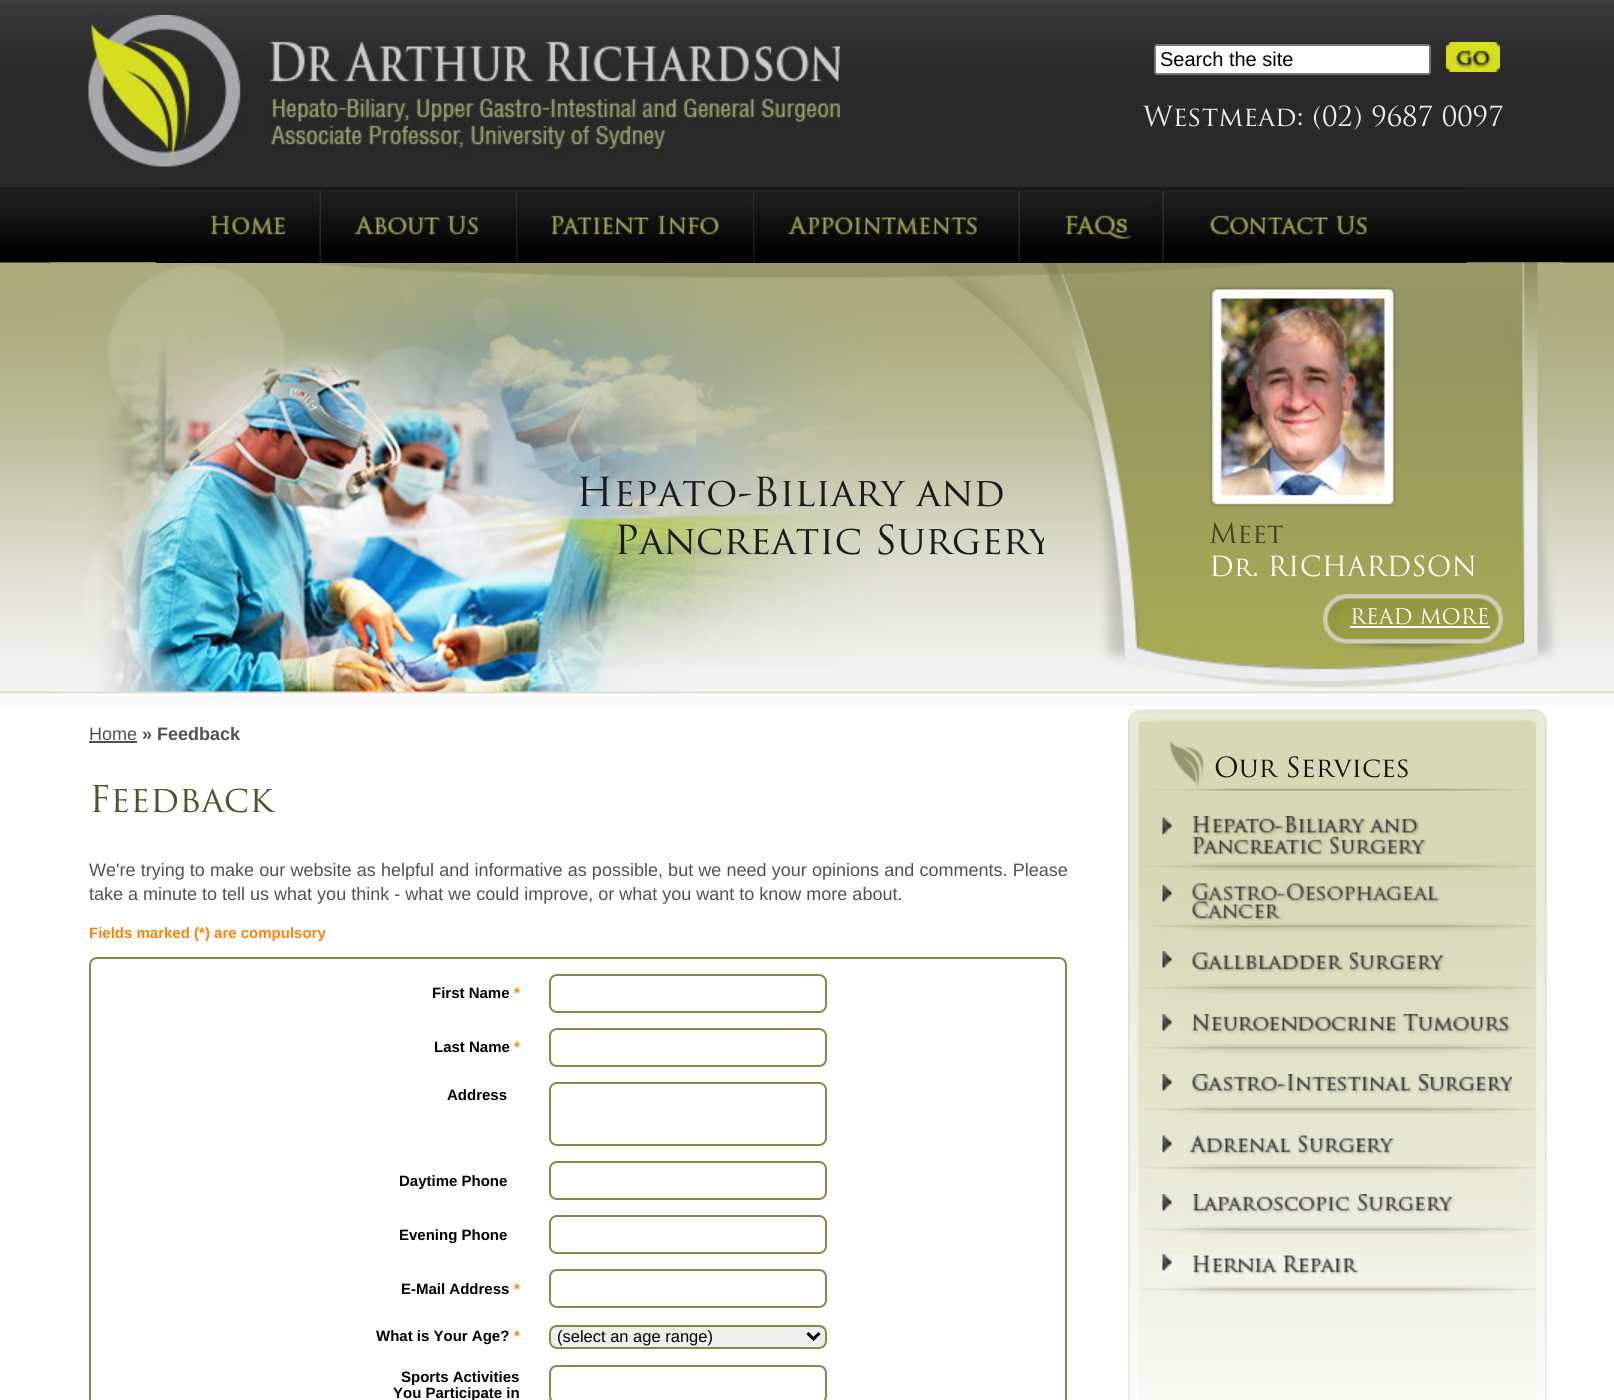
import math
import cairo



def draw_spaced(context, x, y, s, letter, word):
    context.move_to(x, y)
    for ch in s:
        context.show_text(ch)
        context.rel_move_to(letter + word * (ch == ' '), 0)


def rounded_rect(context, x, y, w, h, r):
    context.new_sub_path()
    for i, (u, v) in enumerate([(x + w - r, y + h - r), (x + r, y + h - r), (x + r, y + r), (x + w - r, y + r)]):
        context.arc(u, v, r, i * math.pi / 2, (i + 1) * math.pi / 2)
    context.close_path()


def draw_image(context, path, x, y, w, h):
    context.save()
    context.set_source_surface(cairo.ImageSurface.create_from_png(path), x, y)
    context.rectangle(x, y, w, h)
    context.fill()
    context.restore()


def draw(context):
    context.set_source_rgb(1, 1, 1)
    context.paint()
    draw_image(context, "images/1.png", 0, 0, 1614, 706)
    draw_image(context, "images/2.png", 88, 15, 752, 152)
    context.set_source_rgb(1, 1, 1)
    rounded_rect(context, 1155, 45, 275, 29, 2)
    context.fill_preserve()
    context.set_source_rgb(118 / 255, 118 / 255, 118 / 255)
    context.stroke()
    draw_image(context, "images/3.png", 1446, 42, 54, 30)
    draw_image(context, "images/10.png", 51, 262, 993, 430)
    draw_image(context, "images/11.png", 66, 262, 630, 430)
    context.set_source_rgb(7 / 255, 7 / 255, 7 / 255)
    context.rectangle(156, 262, 165, 1)
    context.fill()
    draw_image(context, "images/4.png", 156, 187, 165, 76)
    context.rectangle(321, 188, 434, 75)
    context.fill()
    draw_image(context, "images/5.png", 321, 187, 197, 76)
    draw_image(context, "images/6.png", 517, 187, 238, 76)
    draw_image(context, "images/12.png", 1044, 262, 519, 430)
    context.rectangle(755, 262, 712, 1)
    context.fill()
    draw_image(context, "images/7.png", 754, 187, 266, 76)
    draw_image(context, "images/8.png", 1020, 187, 144, 76)
    draw_image(context, "images/9.png", 1164, 187, 303, 75)
    draw_image(context, "images/13.png", 1209, 286, 188, 221)
    draw_image(context, "images/14.png", 1323, 594, 180, 56)
    context.set_source_rgb(1, 1, 1)
    context.rectangle(1350, 626, 140, 2)
    context.fill()
    context.set_source_rgb(82 / 255, 81 / 255, 81 / 255)
    context.rectangle(89, 741, 48, 2)
    context.fill()
    rounded_rect(context, 90, 958, 976, 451, 7)
    context.set_source_rgb(135 / 255, 138 / 255, 65 / 255)
    context.stroke()
    rounded_rect(context, 550, 975, 276, 37, 7)
    context.stroke()
    rounded_rect(context, 550, 1029, 276, 37, 7)
    context.stroke()
    rounded_rect(context, 550, 1083, 276, 62, 7)
    context.stroke()
    rounded_rect(context, 550, 1162, 276, 37, 7)
    context.stroke()
    rounded_rect(context, 550, 1216, 276, 37, 7)
    context.stroke()
    rounded_rect(context, 550, 1270, 276, 37, 7)
    context.stroke()
    context.set_source_rgb(239 / 255, 239 / 255, 239 / 255)
    rounded_rect(context, 550, 1326, 276, 22, 7)
    context.fill_preserve()
    context.set_source_rgb(135 / 255, 138 / 255, 65 / 255)
    context.stroke()
    context.new_path()
    context.move_to(807.5, 1333)
    context.line_to(813.5, 1339)
    context.line_to(819.5, 1333)
    context.set_source_rgb(0, 0, 0)
    context.set_line_width(3)
    context.stroke()
    rounded_rect(context, 550, 1366, 276, 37, 7)
    context.set_source_rgb(135 / 255, 138 / 255, 65 / 255)
    context.set_line_width(2)
    context.stroke()
    draw_image(context, "images/15.png", 1128, 709, 419, 691)
    draw_image(context, "images/16.png", 1128, 709, 26, 691)
    draw_image(context, "images/17.png", 1524, 709, 23, 691)
    draw_image(context, "images/18.png", 1138, 741, 387, 50)
    draw_image(context, "images/19.png", 1142, 862, 394, 9)
    draw_image(context, "images/20.png", 1162, 816, 265, 39)
    draw_image(context, "images/21.png", 1142, 922, 394, 9)
    draw_image(context, "images/22.png", 1162, 883, 278, 38)
    draw_image(context, "images/23.png", 1141, 984, 395, 9)
    draw_image(context, "images/24.png", 1162, 951, 283, 21)
    draw_image(context, "images/25.png", 1141, 1044, 395, 9)
    draw_image(context, "images/26.png", 1162, 1014, 349, 21)
    draw_image(context, "images/27.png", 1141, 1105, 395, 9)
    draw_image(context, "images/28.png", 1162, 1074, 350, 21)
    draw_image(context, "images/29.png", 1141, 1164, 395, 9)
    draw_image(context, "images/30.png", 1162, 1135, 232, 23)
    draw_image(context, "images/31.png", 1141, 1225, 395, 10)
    draw_image(context, "images/32.png", 1162, 1194, 293, 23)
    draw_image(context, "images/33.png", 1141, 1285, 395, 10)
    draw_image(context, "images/34.png", 1162, 1254, 198, 23)
    context.select_font_face("Liberation Sans")
    context.set_font_size(20)
    context.set_source_rgb(0, 0, 0)
    context.move_to(1160, 66)
    context.show_text("Search the site")
    context.select_font_face("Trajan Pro")
    context.set_font_size(27)
    context.set_source_rgb(236 / 255, 236 / 255, 237 / 255)
    context.move_to(1143, 126)
    context.show_text("Westmead: (02) 9687 0097")
    context.set_font_size(39)
    context.set_source_rgb(27 / 255, 27 / 255, 27 / 255)
    context.move_to(576, 506)
    context.show_text("Hepato-Biliary and")
    context.save()
    context.rectangle(51, 263, 993, 430)
    context.clip()
    context.move_to(614, 554)
    context.show_text("Pancreatic Surgery")
    context.restore()
    context.set_font_size(27)
    context.set_source_rgb(64 / 255, 65 / 255, 32 / 255)
    context.move_to(1209, 543)
    context.show_text("Meet")
    context.set_source_rgb(1, 1, 1)
    context.move_to(1209, 576)
    context.show_text("Dr. RICHARDSON")
    context.set_font_size(21)
    context.move_to(1350, 624)
    context.show_text("READ MORE")
    context.select_font_face("Liberation Sans")
    context.set_font_size(18)
    context.set_source_rgb(82 / 255, 81 / 255, 81 / 255)
    context.move_to(89, 740)
    context.show_text("Home")
    context.select_font_face("Liberation Sans", cairo.FontSlant.NORMAL, cairo.FontWeight.BOLD)
    context.move_to(142, 740)
    context.show_text("» Feedback")
    context.select_font_face("Trajan Pro")
    context.set_font_size(36)
    context.set_source_rgb(81 / 255, 84 / 255, 39 / 255)
    context.move_to(89, 812)
    context.show_text("Feedback")
    context.select_font_face("Liberation Sans")
    context.set_font_size(18)
    context.set_source_rgb(82 / 255, 81 / 255, 81 / 255)
    draw_spaced(context, 89, 876, "We're trying to make our website as helpful and informative as possible, but we need your opinions and comments. Please", 0, 0.2)
    context.move_to(89, 900)
    context.show_text("take a minute to tell us what you think - what we could improve, or what you want to know more about.")
    context.select_font_face("Liberation Sans", cairo.FontSlant.NORMAL, cairo.FontWeight.BOLD)
    context.set_font_size(15)
    context.set_source_rgb(1, 130 / 255, 4 / 255)
    context.move_to(89, 938)
    context.show_text("Fields marked (*) are compulsory")
    context.set_source_rgb(0, 0, 0)
    context.move_to(432, 998)
    context.show_text("First Name")
    context.set_source_rgb(1, 130 / 255, 4 / 255)
    context.move_to(514, 998)
    context.show_text("*")
    context.set_source_rgb(0, 0, 0)
    context.move_to(434, 1052)
    context.show_text("Last Name")
    context.set_source_rgb(1, 130 / 255, 4 / 255)
    context.move_to(514, 1052)
    context.show_text("*")
    context.set_source_rgb(0, 0, 0)
    context.move_to(447, 1100)
    context.show_text("Address")
    context.move_to(399, 1186)
    context.show_text("Daytime Phone")
    context.move_to(399, 1240)
    context.show_text("Evening Phone")
    context.move_to(401, 1294)
    context.show_text("E-Mail Address")
    context.set_source_rgb(1, 130 / 255, 4 / 255)
    context.move_to(514, 1294)
    context.show_text("*")
    context.set_source_rgb(0, 0, 0)
    context.move_to(376, 1341)
    context.show_text("What is Your Age?")
    context.set_source_rgb(1, 130 / 255, 4 / 255)
    context.move_to(514, 1341)
    context.show_text("*")
    context.select_font_face("Liberation Sans")
    context.set_font_size(16.5)
    context.set_source_rgb(0, 0, 0)
    context.move_to(557, 1342)
    context.show_text("(select an age range)")
    context.select_font_face("Liberation Sans", cairo.FontSlant.NORMAL, cairo.FontWeight.BOLD)
    context.set_font_size(15)
    context.move_to(401, 1382)
    context.show_text("Sports Activities")
    context.move_to(393, 1398)
    context.show_text("You Participate in")
    context.select_font_face("Trajan Pro")
    context.set_font_size(27)
    context.set_source_rgb(16 / 255, 16 / 255, 5 / 255)
    context.move_to(1214, 777)
    context.show_text("Our Services")


surface = cairo.ImageSurface(cairo.Format.RGB24, 1614, 1400)
context = cairo.Context(surface)
options = cairo.FontOptions()
options.set_hint_metrics(cairo.HintMetrics.OFF)
options.set_hint_style(cairo.HintStyle.NONE)
context.set_font_options(options)
context.set_miter_limit(4)
draw(context)
surface.write_to_png("out.png")
